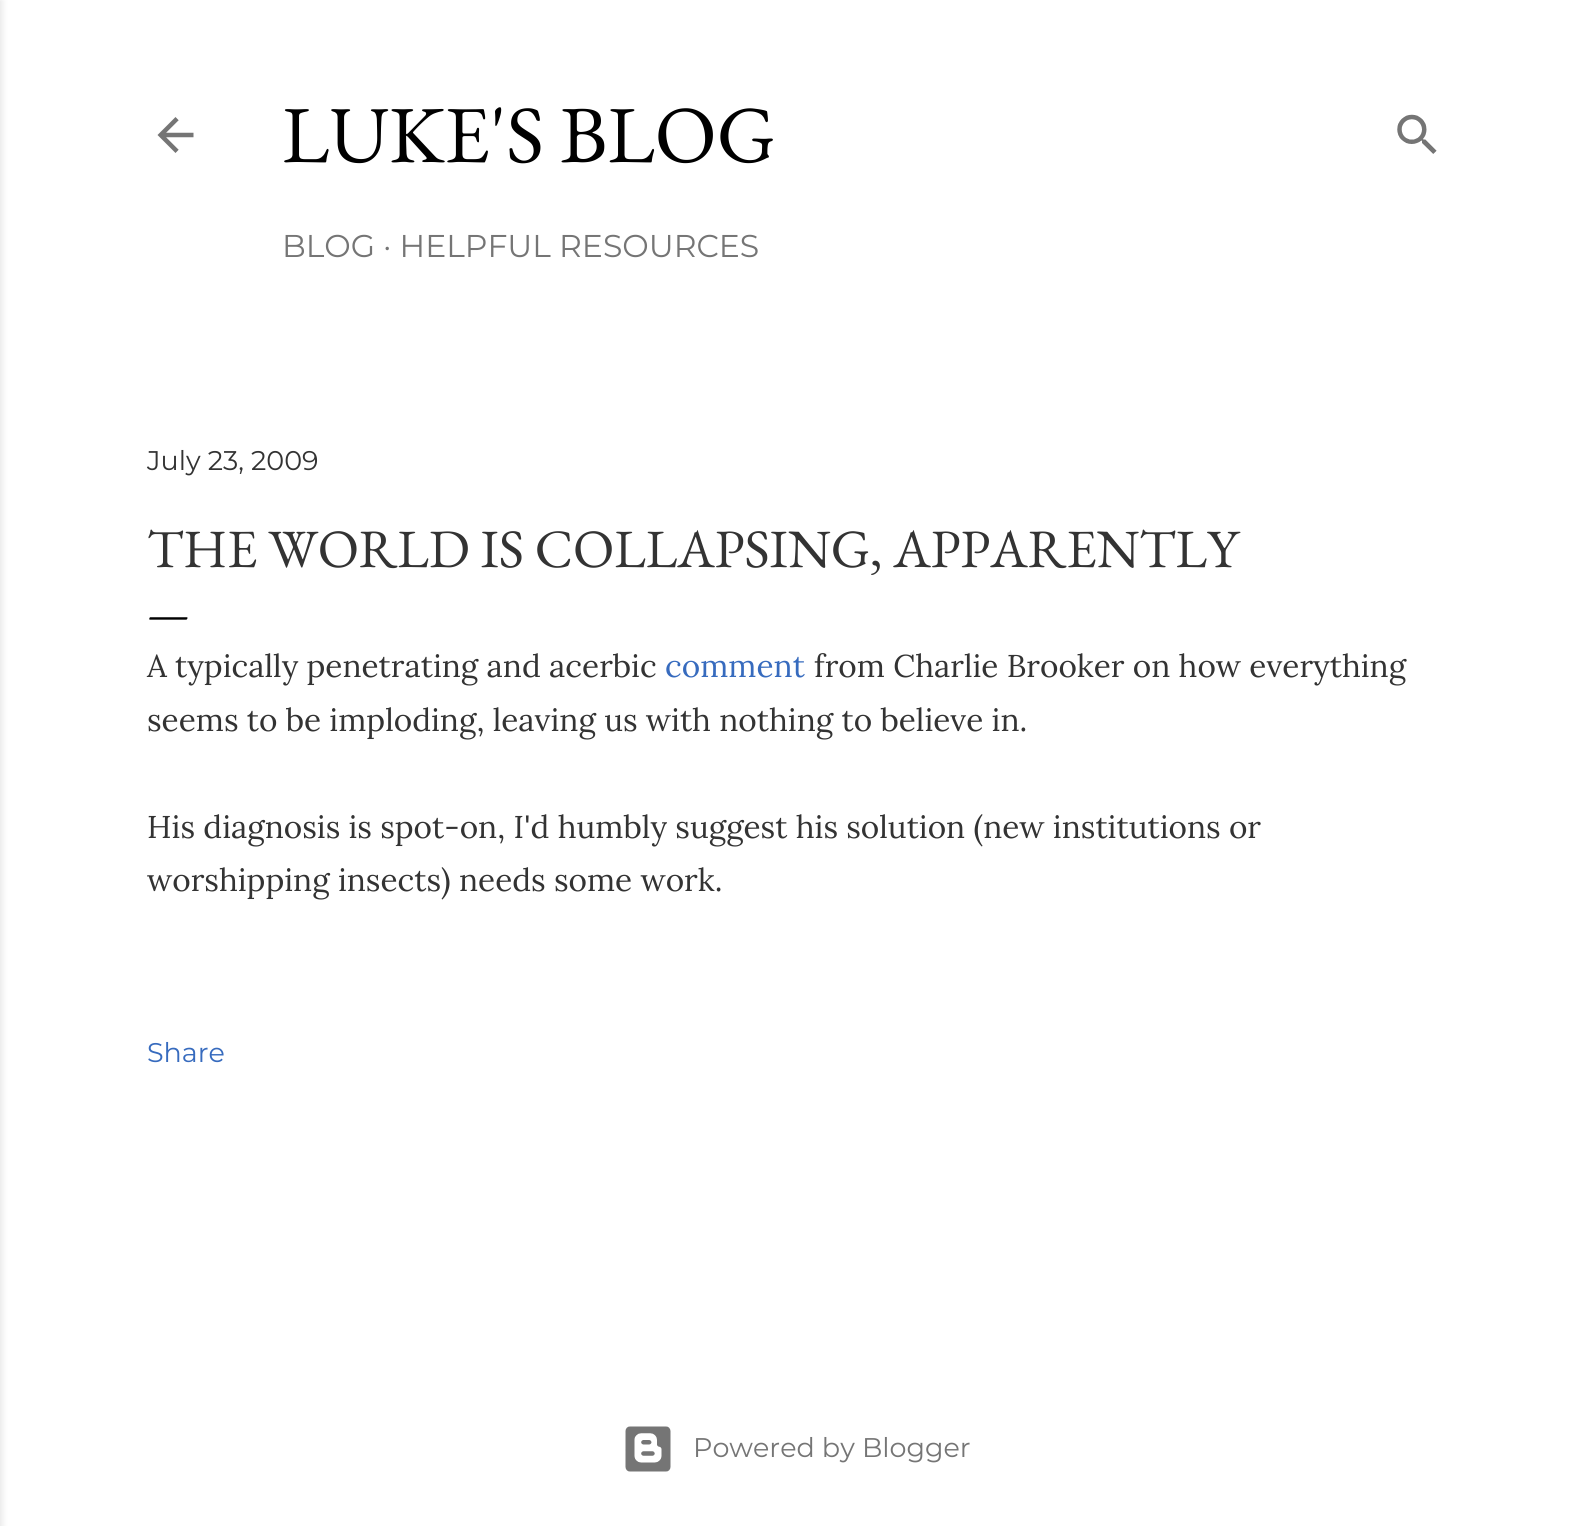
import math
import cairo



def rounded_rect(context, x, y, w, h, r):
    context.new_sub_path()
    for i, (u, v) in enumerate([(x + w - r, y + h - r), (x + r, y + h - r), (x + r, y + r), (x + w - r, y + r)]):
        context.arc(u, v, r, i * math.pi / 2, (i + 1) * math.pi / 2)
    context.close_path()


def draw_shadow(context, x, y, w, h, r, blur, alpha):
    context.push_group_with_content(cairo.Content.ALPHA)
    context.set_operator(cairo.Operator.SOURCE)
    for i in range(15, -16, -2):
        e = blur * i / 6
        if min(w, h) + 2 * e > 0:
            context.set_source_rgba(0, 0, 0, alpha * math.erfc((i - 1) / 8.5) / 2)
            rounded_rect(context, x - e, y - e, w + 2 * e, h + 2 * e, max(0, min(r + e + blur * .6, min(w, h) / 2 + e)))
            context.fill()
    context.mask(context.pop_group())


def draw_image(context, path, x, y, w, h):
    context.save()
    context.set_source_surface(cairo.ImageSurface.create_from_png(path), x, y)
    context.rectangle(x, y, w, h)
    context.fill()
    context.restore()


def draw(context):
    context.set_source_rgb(1, 1, 1)
    context.paint()
    context.set_source_rgb(0, 0, 0)
    draw_shadow(context, -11, 0, 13, 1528, 0, 3.5, 0.1)
    draw_image(context, "images/1.png", 157, 117, 37, 36)
    draw_image(context, "images/2.png", 1397, 114, 40, 40)
    draw_image(context, "images/3.png", 625, 1426, 46, 46)
    context.select_font_face("EB Garamond")
    context.set_font_size(81)
    context.set_source_rgb(0, 0, 0)
    context.move_to(282, 162)
    context.show_text("LUKE'S BLOG")
    context.select_font_face("Montserrat")
    context.set_font_size(31.5)
    context.set_source_rgb(117 / 255, 117 / 255, 117 / 255)
    context.move_to(282, 257)
    context.show_text("BLOG · HELPFUL RESOURCES")
    context.set_font_size(27)
    context.set_source_rgb(51 / 255, 51 / 255, 51 / 255)
    context.move_to(147, 470)
    context.show_text("July 23, 2009")
    context.select_font_face("EB Garamond")
    context.set_font_size(54)
    context.move_to(147, 567)
    context.show_text("THE WORLD IS COLLAPSING, APPARENTLY")
    context.set_font_size(45)
    context.set_source_rgb(0, 0, 0)
    context.move_to(147, 628)
    context.show_text("—")
    context.select_font_face("Lora")
    context.set_font_size(31.5)
    context.set_source_rgb(51 / 255, 51 / 255, 51 / 255)
    context.move_to(147, 677)
    context.show_text("A typically penetrating and acerbic")
    context.set_source_rgb(55 / 255, 107 / 255, 190 / 255)
    context.move_to(665, 677)
    context.show_text("comment")
    context.set_source_rgb(51 / 255, 51 / 255, 51 / 255)
    context.move_to(814, 677)
    context.show_text("from Charlie Brooker on how everything")
    context.move_to(147, 731)
    context.show_text("seems to be imploding, leaving us with nothing to believe in.")
    context.move_to(147, 838)
    context.show_text("His diagnosis is spot-on, I'd humbly suggest his solution (new institutions or")
    context.move_to(147, 891)
    context.show_text("worshipping insects) needs some work.")
    context.select_font_face("Montserrat")
    context.set_font_size(27)
    context.set_source_rgb(55 / 255, 107 / 255, 190 / 255)
    context.move_to(147, 1062)
    context.show_text("Share")
    context.set_source_rgb(117 / 255, 117 / 255, 117 / 255)
    context.move_to(693, 1457)
    context.show_text("Powered by Blogger")


surface = cairo.ImageSurface(cairo.Format.RGB24, 1590, 1526)
context = cairo.Context(surface)
options = cairo.FontOptions()
options.set_hint_metrics(cairo.HintMetrics.OFF)
options.set_hint_style(cairo.HintStyle.NONE)
context.set_font_options(options)
context.set_miter_limit(4)
draw(context)
surface.write_to_png("out.png")
